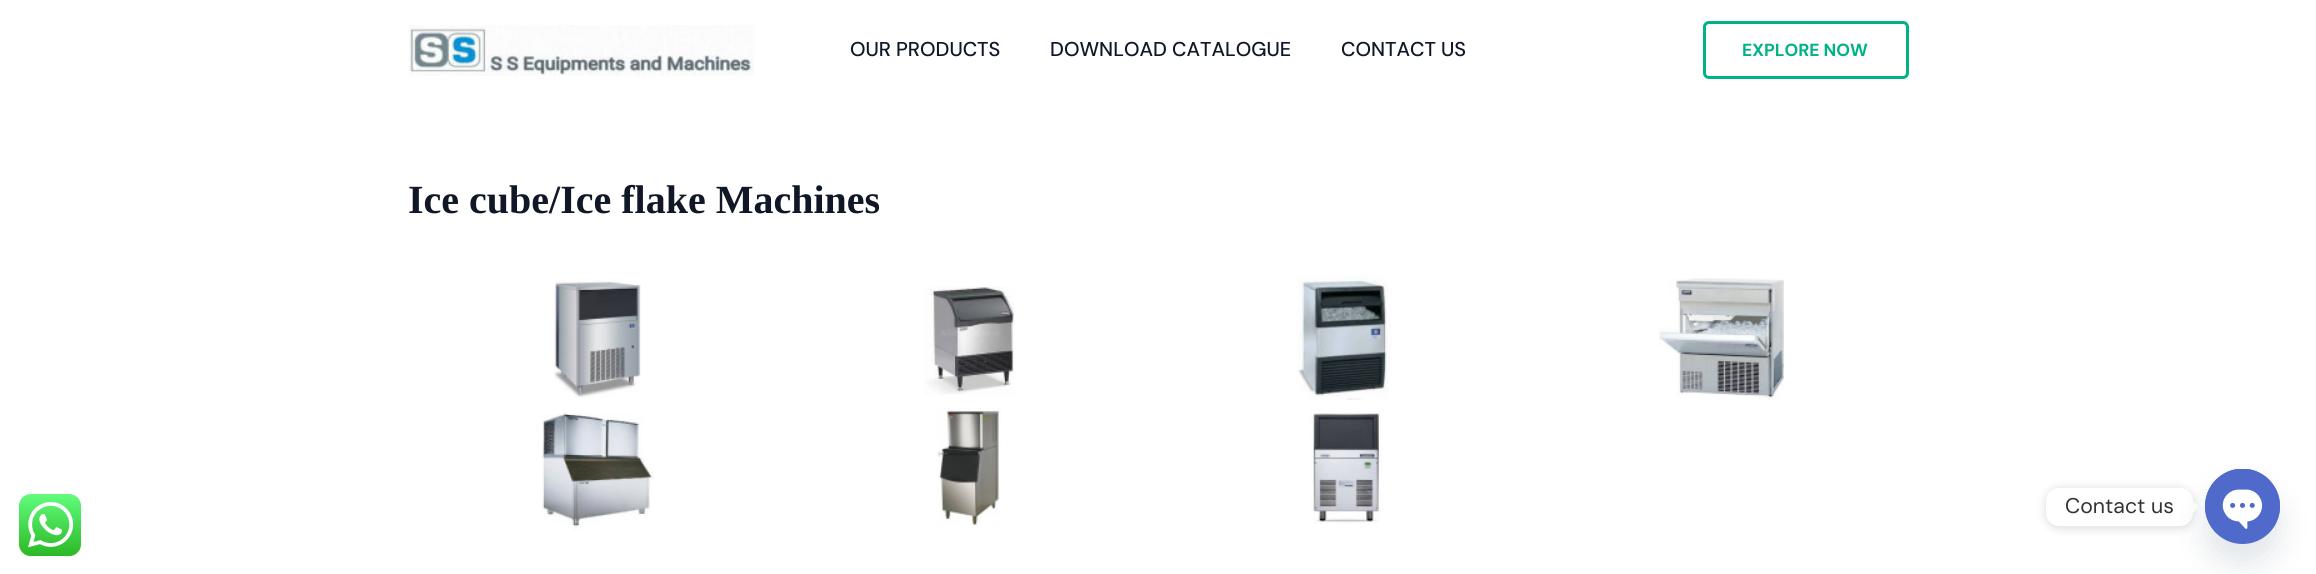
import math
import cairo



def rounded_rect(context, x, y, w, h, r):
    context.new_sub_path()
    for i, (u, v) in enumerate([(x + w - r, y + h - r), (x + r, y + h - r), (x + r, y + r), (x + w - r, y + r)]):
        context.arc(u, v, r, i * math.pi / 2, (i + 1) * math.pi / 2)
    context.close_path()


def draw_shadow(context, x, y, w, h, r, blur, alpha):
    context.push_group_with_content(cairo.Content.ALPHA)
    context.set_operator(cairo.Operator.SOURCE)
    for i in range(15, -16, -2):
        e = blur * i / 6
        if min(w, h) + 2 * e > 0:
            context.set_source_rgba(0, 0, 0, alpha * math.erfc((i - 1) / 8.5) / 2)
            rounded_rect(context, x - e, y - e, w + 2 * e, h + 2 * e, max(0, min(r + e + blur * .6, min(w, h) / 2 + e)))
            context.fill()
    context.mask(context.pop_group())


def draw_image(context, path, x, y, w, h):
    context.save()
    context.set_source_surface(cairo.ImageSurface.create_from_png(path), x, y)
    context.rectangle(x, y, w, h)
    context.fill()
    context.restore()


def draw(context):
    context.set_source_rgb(1, 1, 1)
    context.paint()
    draw_image(context, "images/1.png", 409, 25, 345, 51)
    rounded_rect(context, 1704.5, 22.5, 203, 55, 4.5)
    context.set_source_rgb(0, 178 / 255, 134 / 255)
    context.set_line_width(3)
    context.stroke()
    draw_image(context, "images/2.png", 554, 280, 87, 118)
    draw_image(context, "images/3.png", 924, 286, 91, 109)
    draw_image(context, "images/4.png", 1297, 275, 96, 125)
    draw_image(context, "images/5.png", 1659, 278, 125, 122)
    draw_image(context, "images/6.png", 542, 413, 112, 117)
    draw_image(context, "images/7.png", 936, 408, 65, 118)
    draw_image(context, "images/8.png", 1310, 409, 73, 115)
    draw_image(context, "images/9.png", 19, 494, 62, 62)
    context.set_source_rgb(0, 0, 0)
    draw_shadow(context, 2046, 489, 147, 39, 13, 5, 0.15)
    context.set_source_rgb(1, 1, 1)
    rounded_rect(context, 2046, 488, 147, 38, 13)
    context.fill()
    context.new_path()
    context.move_to(2192.5, 513)
    context.line_to(2192.5, 500.5)
    context.line_to(2199, 507)
    context.close_path()
    context.fill()
    context.set_source_rgb(73 / 255, 104 / 255, 126 / 255)
    draw_shadow(context, 2205, 489, 75, 75, 37.5, 15, 0.16)
    context.set_source_rgb(79 / 255, 106 / 255, 202 / 255)
    context.arc(2242.5, 506.5, 37.5, 0, 2 * math.pi)
    context.fill()
    draw_image(context, "images/10.png", 2205, 469, 75, 66)
    context.select_font_face("DM Sans Medium")
    context.set_font_size(20)
    context.set_source_rgb(16 / 255, 24 / 255, 40 / 255)
    context.move_to(850, 56)
    context.show_text("OUR PRODUCTS")
    context.move_to(1050, 56)
    context.show_text("DOWNLOAD CATALOGUE")
    context.move_to(1341, 56)
    context.show_text("CONTACT US")
    context.select_font_face("DM Sans", cairo.FontSlant.NORMAL, cairo.FontWeight.BOLD)
    context.set_font_size(17.5)
    context.set_source_rgb(0, 178 / 255, 134 / 255)
    context.move_to(1742, 56)
    context.show_text("EXPLORE NOW")
    context.select_font_face("Liberation Serif", cairo.FontSlant.NORMAL, cairo.FontWeight.BOLD)
    context.set_font_size(40)
    context.set_source_rgb(16 / 255, 24 / 255, 40 / 255)
    context.move_to(408, 213)
    context.show_text("Ice cube/Ice flake Machines")
    context.select_font_face("DM Sans")
    context.set_font_size(21.25)
    context.set_source_rgb(51 / 255, 51 / 255, 51 / 255)
    context.move_to(2065, 513)
    context.show_text("Contact us")


surface = cairo.ImageSurface(cairo.Format.RGB24, 2316, 574)
context = cairo.Context(surface)
options = cairo.FontOptions()
options.set_hint_metrics(cairo.HintMetrics.OFF)
options.set_hint_style(cairo.HintStyle.NONE)
context.set_font_options(options)
context.set_miter_limit(4)
draw(context)
surface.write_to_png("out.png")
